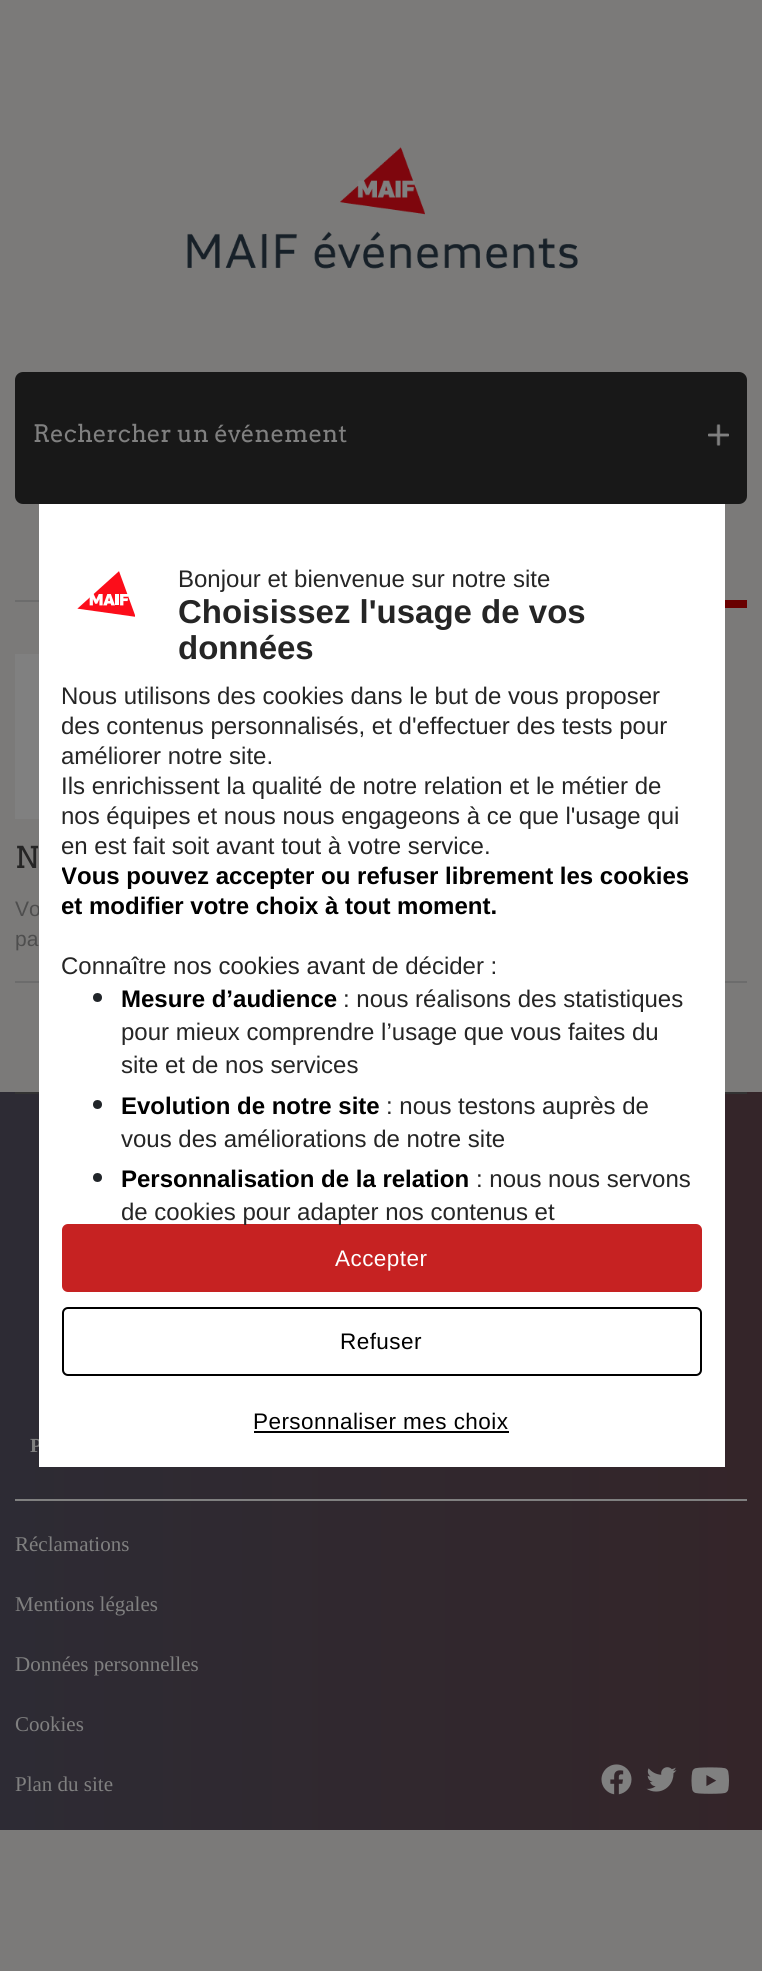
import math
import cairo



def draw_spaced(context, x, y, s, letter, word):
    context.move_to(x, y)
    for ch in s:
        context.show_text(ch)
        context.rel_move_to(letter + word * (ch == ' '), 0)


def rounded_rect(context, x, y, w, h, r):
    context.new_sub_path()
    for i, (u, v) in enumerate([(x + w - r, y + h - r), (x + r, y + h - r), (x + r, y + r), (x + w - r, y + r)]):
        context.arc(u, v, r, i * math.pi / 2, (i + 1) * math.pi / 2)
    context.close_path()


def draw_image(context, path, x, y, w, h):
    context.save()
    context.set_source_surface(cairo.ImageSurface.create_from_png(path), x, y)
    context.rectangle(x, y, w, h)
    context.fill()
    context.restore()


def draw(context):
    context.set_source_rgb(123 / 255, 122 / 255, 121 / 255)
    context.paint()
    draw_image(context, "images/1.png", 187, 147, 391, 122)
    context.set_source_rgb(24 / 255, 24 / 255, 24 / 255)
    rounded_rect(context, 15, 372, 732, 132, 8)
    context.fill()
    draw_image(context, "images/2.png", 708, 424, 21, 22)
    context.set_source_rgb(108 / 255, 108 / 255, 108 / 255)
    context.rectangle(15, 600, 24, 2)
    context.fill()
    context.set_source_rgb(105 / 255, 0, 0)
    context.rectangle(725, 600, 22, 8)
    context.fill()
    draw_image(context, "images/3.png", 15, 654, 24, 165)
    context.set_source_rgb(108 / 255, 108 / 255, 108 / 255)
    context.rectangle(15, 981, 732, 2)
    context.fill()
    gradient = cairo.LinearGradient(0, 1461, 762, 1461)
    gradient.add_color_stop_rgba(0, 45 / 255, 43 / 255, 52 / 255, 1)
    gradient.add_color_stop_rgba(1, 52 / 255, 37 / 255, 41 / 255, 1)
    context.set_source(gradient)
    context.rectangle(0, 1092, 762, 738)
    context.fill()
    context.set_source_rgb(51 / 255, 51 / 255, 51 / 255)
    context.rectangle(15, 1092, 732, 2)
    context.fill()
    context.set_source_rgb(128 / 255, 128 / 255, 128 / 255)
    context.rectangle(15, 1499, 732, 2)
    context.fill()
    draw_image(context, "images/5.png", 601, 1764, 31, 31)
    draw_image(context, "images/6.png", 646, 1767, 31, 25)
    draw_image(context, "images/7.png", 691, 1767, 38, 27)
    context.select_font_face("Arvo")
    context.set_font_size(24)
    context.move_to(33, 442)
    context.show_text("Rechercher un événement")
    context.set_font_size(30)
    context.set_source_rgb(37 / 255, 37 / 255, 37 / 255)
    context.move_to(15, 868)
    context.show_text("N")
    context.select_font_face("Liberation Sans")
    context.set_font_size(21)
    context.set_source_rgb(78 / 255, 78 / 255, 78 / 255)
    context.move_to(15, 916)
    context.show_text("Vo")
    context.move_to(15, 946)
    context.show_text("pa")
    context.select_font_face("Liberation Serif", cairo.FontSlant.NORMAL, cairo.FontWeight.BOLD)
    context.set_font_size(20)
    context.set_source_rgb(128 / 255, 128 / 255, 128 / 255)
    context.move_to(30, 1452)
    context.show_text("P")
    context.set_source_rgb(1, 1, 1)
    context.rectangle(39, 504, 686, 963)
    context.fill()
    context.set_source_rgb(198 / 255, 34 / 255, 34 / 255)
    rounded_rect(context, 62, 1224, 640, 68, 6)
    context.fill()
    context.select_font_face("Liberation Sans")
    context.set_font_size(22.5)
    context.set_source_rgb(1, 1, 1)
    draw_spaced(context, 335, 1266, "Accepter", 0.45, 0)
    rounded_rect(context, 63, 1308, 638, 67, 5)
    context.set_source_rgb(0, 0, 0)
    context.stroke()
    draw_spaced(context, 340, 1349, "Refuser", 0.45, 0)
    draw_spaced(context, 253, 1429, "Personnaliser mes choix", 0.45, 0)
    context.rectangle(254, 1431, 255, 2)
    context.fill()
    context.set_font_size(24)
    context.set_source_rgb(37 / 255, 37 / 255, 37 / 255)
    context.move_to(121, 1220)
    context.show_text("de cookies pour adapter nos contenus et")
    context.move_to(476, 1187)
    context.show_text(": nous nous servons")
    context.select_font_face("Liberation Sans", cairo.FontSlant.NORMAL, cairo.FontWeight.BOLD)
    context.set_source_rgb(0, 0, 0)
    context.move_to(121, 1187)
    context.show_text("Personnalisation de la relation")
    context.set_source_rgb(33 / 255, 37 / 255, 41 / 255)
    context.new_path()
    context.arc(97.5, 1177.5, 4.5, 0, 2 * math.pi)
    context.fill()
    context.select_font_face("Liberation Sans")
    context.set_source_rgb(37 / 255, 37 / 255, 37 / 255)
    context.move_to(121, 1147)
    context.show_text("vous des améliorations de notre site")
    context.move_to(386, 1114)
    context.show_text(": nous testons auprès de")
    context.select_font_face("Liberation Sans", cairo.FontSlant.NORMAL, cairo.FontWeight.BOLD)
    context.set_source_rgb(0, 0, 0)
    context.move_to(121, 1114)
    context.show_text("Evolution de notre site")
    context.set_source_rgb(33 / 255, 37 / 255, 41 / 255)
    context.new_path()
    context.arc(97.5, 1104.5, 4.5, 0, 2 * math.pi)
    context.fill()
    context.select_font_face("Liberation Sans")
    context.set_source_rgb(37 / 255, 37 / 255, 37 / 255)
    context.move_to(121, 1073)
    context.show_text("site et de nos services")
    context.move_to(121, 1040)
    context.show_text("pour mieux comprendre l’usage que vous faites du")
    context.move_to(343, 1007)
    context.show_text(": nous réalisons des statistiques")
    context.select_font_face("Liberation Sans", cairo.FontSlant.NORMAL, cairo.FontWeight.BOLD)
    context.set_source_rgb(0, 0, 0)
    context.move_to(121, 1007)
    context.show_text("Mesure d’audience")
    context.set_source_rgb(33 / 255, 37 / 255, 41 / 255)
    context.new_path()
    context.arc(97.5, 997.5, 4.5, 0, 2 * math.pi)
    context.fill()
    context.select_font_face("Liberation Sans")
    context.set_source_rgb(37 / 255, 37 / 255, 37 / 255)
    context.move_to(61, 974)
    context.show_text("Connaître nos cookies avant de décider :")
    context.save()
    context.rectangle(62, 549, 640, 675)
    context.clip()
    context.select_font_face("Liberation Sans", cairo.FontSlant.NORMAL, cairo.FontWeight.BOLD)
    context.set_source_rgb(0, 0, 0)
    context.move_to(61, 914)
    context.show_text("et modifier votre choix à tout moment.")
    context.move_to(61, 884)
    context.show_text("Vous pouvez accepter ou refuser librement les cookies")
    context.select_font_face("Liberation Sans")
    context.set_source_rgb(37 / 255, 37 / 255, 37 / 255)
    context.move_to(61, 854)
    context.show_text("en est fait soit avant tout à votre service.")
    context.restore()
    context.move_to(61, 824)
    context.show_text("nos équipes et nous nous engageons à ce que l'usage qui")
    context.move_to(61, 794)
    context.show_text("Ils enrichissent la qualité de notre relation et le métier de")
    context.save()
    context.rectangle(62, 549, 640, 675)
    context.clip()
    context.move_to(61, 764)
    context.show_text("améliorer notre site.")
    context.move_to(61, 734)
    context.show_text("des contenus personnalisés, et d'effectuer des tests pour")
    context.restore()
    context.move_to(61, 704)
    context.show_text("Nous utilisons des cookies dans le but de vous proposer")
    context.select_font_face("Liberation Sans", cairo.FontSlant.NORMAL, cairo.FontWeight.BOLD)
    context.set_font_size(33)
    context.move_to(178, 659)
    context.show_text("données")
    context.move_to(178, 623)
    context.show_text("Choisissez l'usage de vos")
    context.select_font_face("Liberation Sans")
    context.set_font_size(24)
    context.move_to(178, 587)
    context.show_text("Bonjour et bienvenue sur notre site")
    draw_image(context, "images/4.png", 77, 571, 58, 46)
    context.select_font_face("Liberation Serif")
    context.set_font_size(21)
    context.set_source_rgb(128 / 255, 128 / 255, 128 / 255)
    context.move_to(15, 1551)
    context.show_text("Réclamations")
    context.move_to(15, 1611)
    context.show_text("Mentions légales")
    context.move_to(15, 1671)
    context.show_text("Données personnelles")
    context.move_to(15, 1731)
    context.show_text("Cookies")
    context.move_to(15, 1791)
    context.show_text("Plan du site")


surface = cairo.ImageSurface(cairo.Format.RGB24, 762, 1971)
context = cairo.Context(surface)
options = cairo.FontOptions()
options.set_hint_metrics(cairo.HintMetrics.OFF)
options.set_hint_style(cairo.HintStyle.NONE)
context.set_font_options(options)
context.set_miter_limit(4)
draw(context)
surface.write_to_png("out.png")
